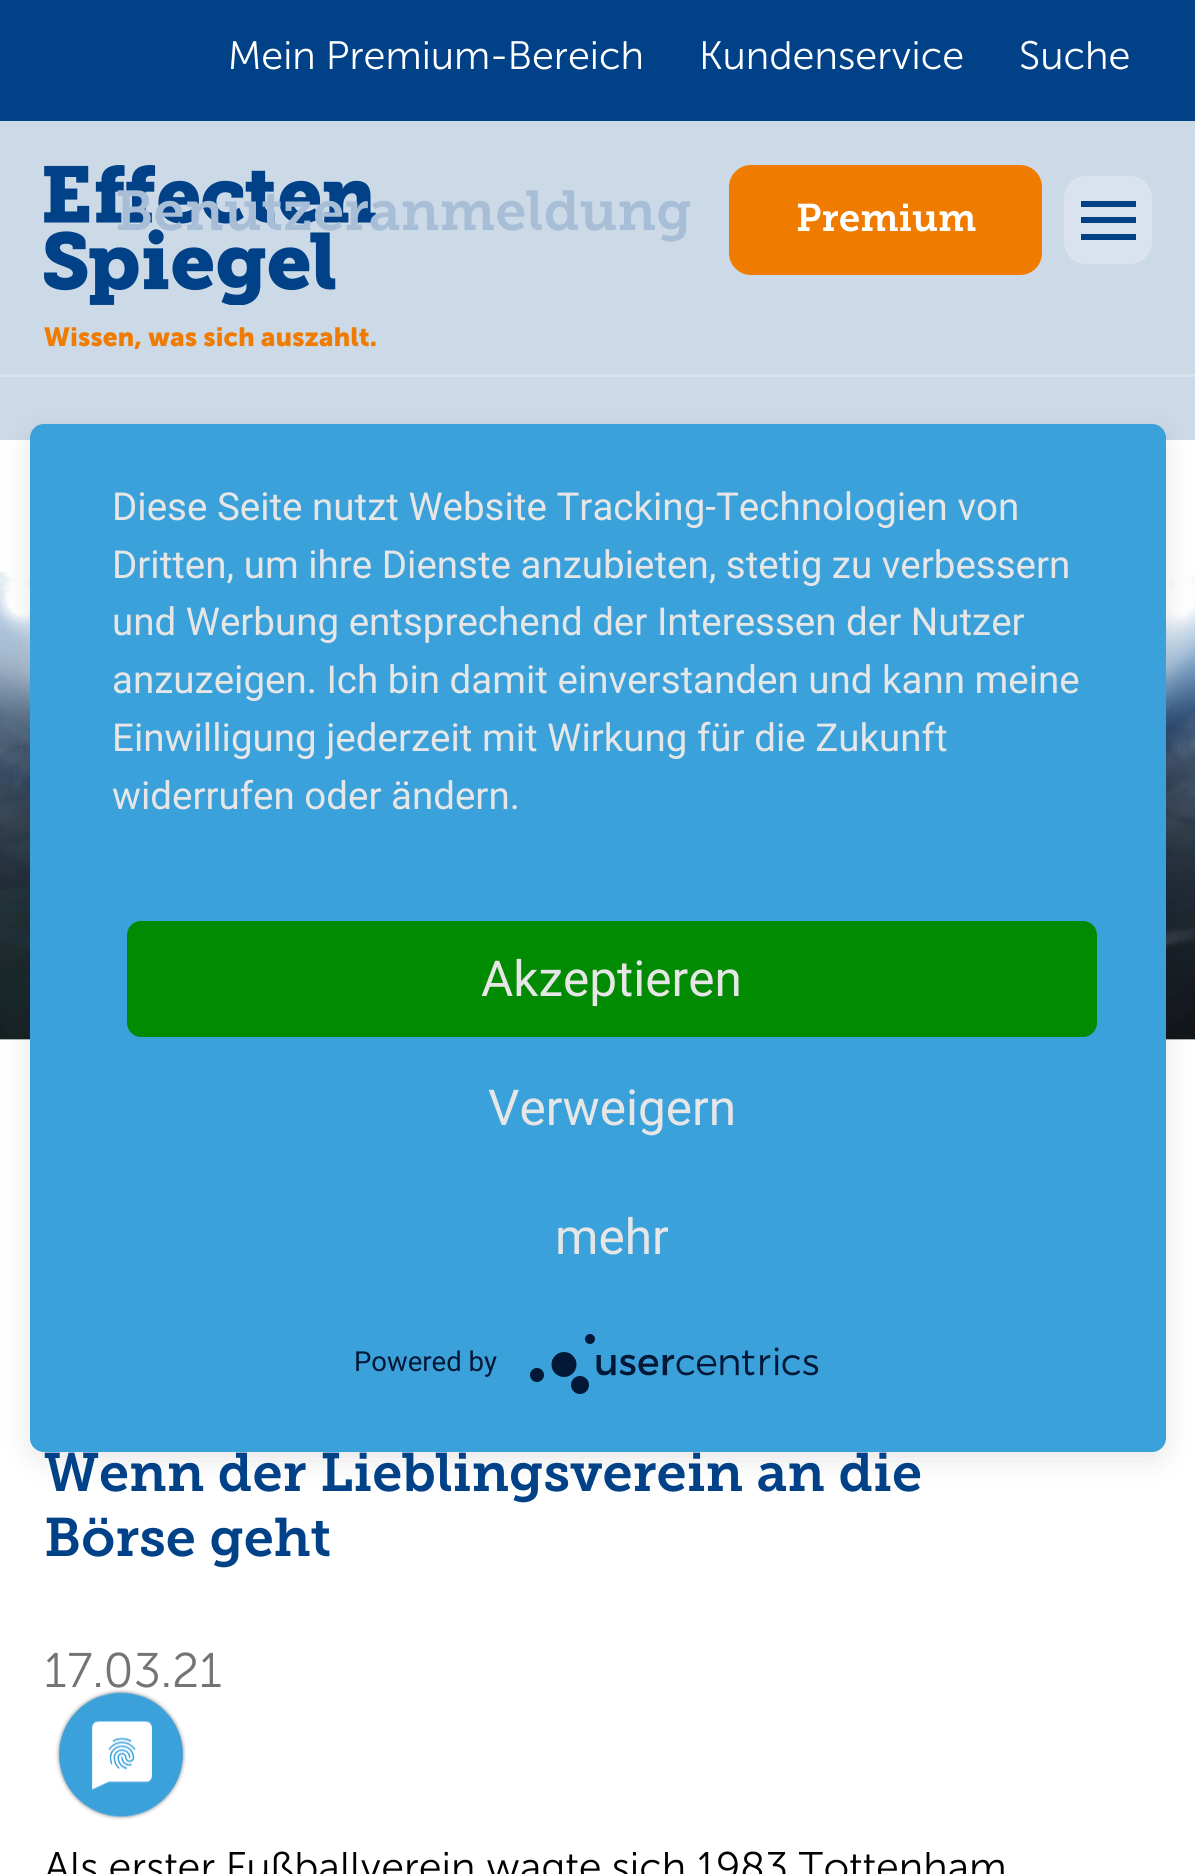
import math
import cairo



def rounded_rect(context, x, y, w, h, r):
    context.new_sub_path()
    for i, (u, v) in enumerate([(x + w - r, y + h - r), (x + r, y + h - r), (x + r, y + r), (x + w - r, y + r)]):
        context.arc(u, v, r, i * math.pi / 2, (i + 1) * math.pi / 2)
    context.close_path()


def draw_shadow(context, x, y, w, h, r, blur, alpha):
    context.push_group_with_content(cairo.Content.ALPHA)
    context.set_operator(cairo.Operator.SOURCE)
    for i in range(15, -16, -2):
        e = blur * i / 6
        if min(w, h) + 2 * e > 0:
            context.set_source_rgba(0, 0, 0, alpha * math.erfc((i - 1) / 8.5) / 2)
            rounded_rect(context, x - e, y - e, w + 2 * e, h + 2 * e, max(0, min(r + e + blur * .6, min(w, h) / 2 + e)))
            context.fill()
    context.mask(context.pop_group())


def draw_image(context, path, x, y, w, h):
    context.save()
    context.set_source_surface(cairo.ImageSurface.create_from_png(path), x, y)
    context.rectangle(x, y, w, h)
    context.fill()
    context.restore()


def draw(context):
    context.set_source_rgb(1, 1, 1)
    context.paint()
    context.set_source_rgb(204 / 255, 217 / 255, 231 / 255)
    context.rectangle(0, 121, 1195, 319)
    context.fill()
    context.set_source_rgb(0, 65 / 255, 136 / 255)
    context.rectangle(0, 0, 1195, 121)
    context.fill()
    draw_image(context, "images/1.png", 44, 165, 332, 140)
    draw_image(context, "images/2.png", 44, 327, 332, 22)
    context.set_source_rgb(239 / 255, 124 / 255, 0)
    rounded_rect(context, 729, 165, 313, 110, 22)
    context.fill()
    context.set_source_rgb(217 / 255, 226 / 255, 237 / 255)
    rounded_rect(context, 1064, 176, 88, 88, 22)
    context.fill()
    context.set_source_rgb(0, 65 / 255, 136 / 255)
    context.rectangle(1081, 201, 55, 6)
    context.fill()
    context.rectangle(1081, 217, 55, 6)
    context.fill()
    context.rectangle(1081, 234, 55, 6)
    context.fill()
    context.set_source_rgb(217 / 255, 226 / 255, 237 / 255)
    context.rectangle(0, 374, 1195, 3)
    context.fill()
    draw_image(context, "images/5.png", 0, 572, 1195, 468)
    context.set_source_rgb(0, 0, 0)
    draw_shadow(context, 30, 432, 1136, 1028, 14, 14, 0.1)
    context.save()
    rounded_rect(context, 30, 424, 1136, 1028, 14)
    context.clip()
    draw_shadow(context, 30, 440, 1136, 1029, 0, 49.5, 0.3)
    context.restore()
    context.set_source_rgb(59 / 255, 161 / 255, 219 / 255)
    rounded_rect(context, 30, 424, 1136, 1028, 14)
    context.fill()
    context.set_source_rgb(0, 139 / 255, 2 / 255)
    rounded_rect(context, 127, 921, 970, 116, 14)
    context.fill()
    draw_image(context, "images/3.png", 530, 1334, 289, 60)
    draw_image(context, "images/4.png", 55, 1689, 131, 131)
    context.select_font_face("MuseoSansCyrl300")
    context.set_font_size(39.6)
    context.set_source_rgb(1, 1, 1)
    context.move_to(228, 69)
    context.show_text("Mein Premium-Bereich")
    context.move_to(699, 69)
    context.show_text("Kundenservice")
    context.move_to(1019, 69)
    context.show_text("Suche")
    context.select_font_face("Museo Slab", cairo.FontSlant.NORMAL, cairo.FontWeight.BOLD)
    context.set_font_size(38.5)
    context.move_to(796, 231)
    context.show_text("Premium")
    context.set_font_size(55.9)
    context.set_source_rgb(168 / 255, 190 / 255, 214 / 255)
    context.move_to(115, 230)
    context.show_text("Benutzeranmeldung")
    context.select_font_face("Roboto")
    context.set_font_size(38.5)
    context.set_source_rgb(230 / 255, 230 / 255, 230 / 255)
    context.move_to(112, 520)
    context.show_text("Diese Seite nutzt Website Tracking-Technologien von")
    context.move_to(112, 578)
    context.show_text("Dritten, um ihre Dienste anzubieten, stetig zu verbessern")
    context.move_to(112, 635)
    context.show_text("und Werbung entsprechend der Interessen der Nutzer")
    context.move_to(112, 693)
    context.show_text("anzuzeigen. Ich bin damit einverstanden und kann meine")
    context.move_to(112, 751)
    context.show_text("Einwilligung jederzeit mit Wirkung für die Zukunft")
    context.move_to(112, 809)
    context.show_text("widerrufen oder ändern.")
    context.set_font_size(49.5)
    context.move_to(481, 996)
    context.show_text("Akzeptieren")
    context.move_to(488, 1125)
    context.show_text("Verweigern")
    context.move_to(555, 1254)
    context.show_text("mehr")
    context.set_font_size(27.5)
    context.set_source_rgb(2 / 255, 24 / 255, 54 / 255)
    context.move_to(354, 1371)
    context.show_text("Powered by")
    context.select_font_face("Museo Slab", cairo.FontSlant.NORMAL, cairo.FontWeight.BOLD)
    context.set_font_size(54)
    context.set_source_rgb(0, 65 / 255, 136 / 255)
    context.move_to(44, 1491)
    context.show_text("Wenn der Lieblingsverein an die")
    context.move_to(44, 1556)
    context.show_text("Börse geht")
    context.select_font_face("MuseoSansCyrl300")
    context.set_font_size(48.5)
    context.set_source_rgb(116 / 255, 116 / 255, 116 / 255)
    context.move_to(44, 1687)
    context.show_text("17.03.21")
    context.set_font_size(41.25)
    context.set_source_rgb(0, 0, 0)
    context.move_to(44, 1881)
    context.show_text("Als erster Fußballverein wagte sich 1983 Tottenham")


surface = cairo.ImageSurface(cairo.Format.RGB24, 1195, 1874)
context = cairo.Context(surface)
options = cairo.FontOptions()
options.set_hint_metrics(cairo.HintMetrics.OFF)
options.set_hint_style(cairo.HintStyle.NONE)
context.set_font_options(options)
context.set_miter_limit(4)
draw(context)
surface.write_to_png("out.png")
